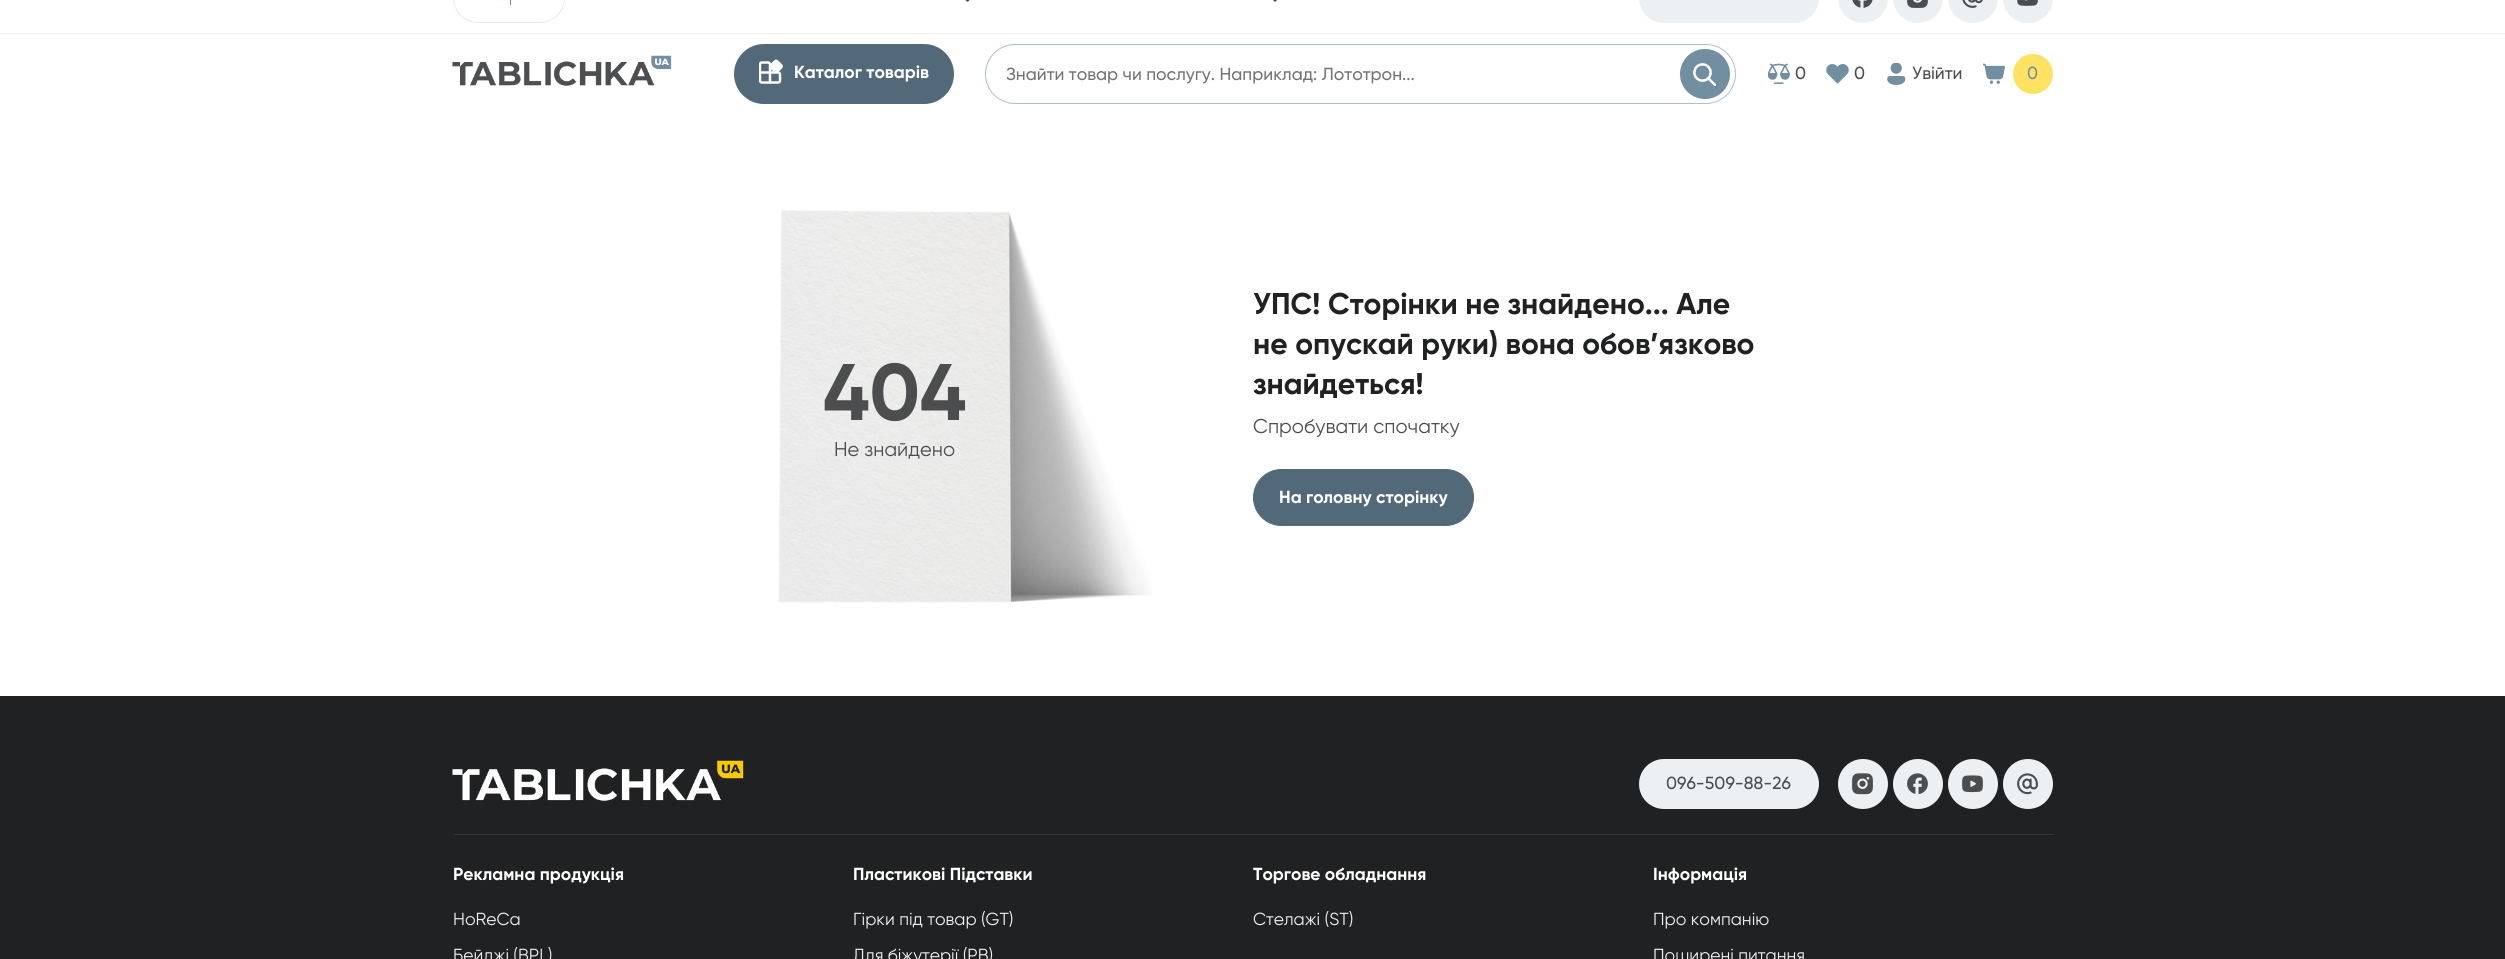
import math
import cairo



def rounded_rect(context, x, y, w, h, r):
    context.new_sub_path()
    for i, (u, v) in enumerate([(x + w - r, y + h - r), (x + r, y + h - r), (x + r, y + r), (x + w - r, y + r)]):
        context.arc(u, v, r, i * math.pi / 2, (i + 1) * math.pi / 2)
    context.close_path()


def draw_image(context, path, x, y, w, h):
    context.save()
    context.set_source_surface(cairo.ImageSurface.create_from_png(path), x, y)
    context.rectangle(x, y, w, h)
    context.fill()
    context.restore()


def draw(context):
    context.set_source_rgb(1, 1, 1)
    context.paint()
    context.set_source_rgb(237 / 255, 240 / 255, 243 / 255)
    context.rectangle(0, 33, 2505, 1)
    context.fill()
    rounded_rect(context, 453.5, -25.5, 111, 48, 24.5)
    context.set_source_rgb(227 / 255, 232 / 255, 236 / 255)
    context.set_line_width(1)
    context.stroke()
    context.set_source_rgb(114 / 255, 142 / 255, 161 / 255)
    context.rectangle(510, 0, 1, 5)
    context.fill()
    draw_image(context, "images/1.png", 965, 0, 5, 2)
    draw_image(context, "images/2.png", 1273, 0, 4, 2)
    context.set_source_rgb(237 / 255, 240 / 255, 243 / 255)
    rounded_rect(context, 1639, -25, 180, 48, 25)
    context.fill()
    rounded_rect(context, 1838, -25, 50, 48, 25)
    context.fill()
    draw_image(context, "images/3.png", 1852, 0, 21, 8)
    rounded_rect(context, 1893, -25, 50, 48, 25)
    context.fill()
    draw_image(context, "images/4.png", 1907, 0, 21, 8)
    rounded_rect(context, 1948, -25, 50, 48, 25)
    context.fill()
    draw_image(context, "images/5.png", 1962, 0, 21, 8)
    rounded_rect(context, 2003, -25, 50, 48, 25)
    context.fill()
    draw_image(context, "images/6.png", 2017, 0, 21, 6)
    draw_image(context, "images/7.png", 452, 55, 220, 31)
    context.set_source_rgb(82 / 255, 105 / 255, 122 / 255)
    rounded_rect(context, 734, 44, 220, 60, 30)
    context.fill()
    draw_image(context, "images/8.png", 759, 59, 24, 25)
    rounded_rect(context, 985.5, 44.5, 750, 59, 29.5)
    context.set_source_rgb(175 / 255, 191 / 255, 202 / 255)
    context.stroke()
    context.set_source_rgb(114 / 255, 142 / 255, 161 / 255)
    context.arc(1705, 74, 25, 0, 2 * math.pi)
    context.fill()
    draw_image(context, "images/9.png", 1693, 63, 23, 23)
    draw_image(context, "images/10.png", 1768, 63, 22, 21)
    draw_image(context, "images/11.png", 1826, 64, 23, 20)
    draw_image(context, "images/12.png", 1887, 63, 19, 22)
    draw_image(context, "images/13.png", 1983, 63, 22, 21)
    context.set_source_rgb(1, 226 / 255, 97 / 255)
    context.arc(2033, 74, 20, 0, 2 * math.pi)
    context.fill()
    draw_image(context, "images/14.png", 778, 210, 374, 393)
    context.set_source_rgb(82 / 255, 105 / 255, 122 / 255)
    rounded_rect(context, 1253.5, 469.5, 220, 56, 28)
    context.fill_preserve()
    context.stroke()
    context.set_source_rgb(32 / 255, 33 / 255, 34 / 255)
    context.rectangle(0, 696, 2505, 263)
    context.fill()
    context.set_source_rgb(54 / 255, 55 / 255, 56 / 255)
    context.rectangle(453, 834, 1600, 1)
    context.fill()
    draw_image(context, "images/15.png", 452, 760, 292, 41)
    context.set_source_rgb(237 / 255, 240 / 255, 243 / 255)
    rounded_rect(context, 1639, 759, 180, 50, 25)
    context.fill()
    context.arc(1863, 784, 25, 0, 2 * math.pi)
    context.fill()
    draw_image(context, "images/16.png", 1852, 773, 21, 22)
    context.arc(1918, 784, 25, 0, 2 * math.pi)
    context.fill()
    draw_image(context, "images/17.png", 1907, 773, 21, 22)
    context.arc(1973, 784, 25, 0, 2 * math.pi)
    context.fill()
    draw_image(context, "images/18.png", 1962, 775, 21, 18)
    context.arc(2028, 784, 25, 0, 2 * math.pi)
    context.fill()
    draw_image(context, "images/19.png", 2017, 773, 21, 22)
    context.select_font_face("Gilroy", cairo.FontSlant.NORMAL, cairo.FontWeight.BOLD)
    context.set_font_size(17.5)
    context.set_source_rgb(1, 1, 1)
    context.move_to(794, 78)
    context.show_text("Каталог товарів")
    context.select_font_face("Gilroy Medium")
    context.set_source_rgb(117 / 255, 117 / 255, 117 / 255)
    context.move_to(1006, 80)
    context.show_text("Знайти товар чи послугу. Наприклад: Лототрон...")
    context.set_source_rgb(75 / 255, 77 / 255, 78 / 255)
    context.move_to(1795, 79)
    context.show_text("0")
    context.move_to(1854, 79)
    context.show_text("0")
    context.move_to(1912, 79)
    context.show_text("Увійти")
    context.set_source_rgb(114 / 255, 142 / 255, 161 / 255)
    context.move_to(2027, 79)
    context.show_text("0")
    context.select_font_face("Gilroy", cairo.FontSlant.NORMAL, cairo.FontWeight.BOLD)
    context.set_font_size(80)
    context.set_source_rgb(75 / 255, 77 / 255, 78 / 255)
    context.move_to(823, 420)
    context.show_text("404")
    context.select_font_face("Gilroy")
    context.set_font_size(20)
    context.move_to(834, 456)
    context.show_text("Не знайдено")
    context.select_font_face("Gilroy", cairo.FontSlant.NORMAL, cairo.FontWeight.BOLD)
    context.set_font_size(30)
    context.set_source_rgb(32 / 255, 33 / 255, 34 / 255)
    context.move_to(1253, 314)
    context.show_text("УПС! Сторінки не знайдено... Але")
    context.move_to(1253, 354)
    context.show_text("не опускай руки) вона обов’язково")
    context.move_to(1253, 394)
    context.show_text("знайдеться!")
    context.select_font_face("Gilroy")
    context.set_font_size(20)
    context.set_source_rgb(75 / 255, 77 / 255, 78 / 255)
    context.move_to(1253, 433)
    context.show_text("Спробувати спочатку")
    context.select_font_face("Gilroy", cairo.FontSlant.NORMAL, cairo.FontWeight.BOLD)
    context.set_font_size(17.5)
    context.set_source_rgb(1, 1, 1)
    context.move_to(1279, 503)
    context.show_text("На головну сторінку")
    context.select_font_face("Gilroy Medium")
    context.set_source_rgb(75 / 255, 77 / 255, 78 / 255)
    context.move_to(1666, 789)
    context.show_text("096-509-88-26")
    context.select_font_face("Gilroy", cairo.FontSlant.NORMAL, cairo.FontWeight.BOLD)
    context.set_source_rgb(1, 1, 1)
    context.move_to(453, 880)
    context.show_text("Рекламна продукція")
    context.select_font_face("Gilroy")
    context.set_source_rgb(237 / 255, 240 / 255, 243 / 255)
    context.move_to(453, 925)
    context.show_text("HoReCa")
    context.move_to(453, 961)
    context.show_text("Бейджі (BPL)")
    context.select_font_face("Gilroy", cairo.FontSlant.NORMAL, cairo.FontWeight.BOLD)
    context.set_source_rgb(1, 1, 1)
    context.move_to(853, 880)
    context.show_text("Пластикові Підставки")
    context.select_font_face("Gilroy")
    context.set_source_rgb(237 / 255, 240 / 255, 243 / 255)
    context.move_to(853, 925)
    context.show_text("Гірки під товар (GT)")
    context.move_to(853, 961)
    context.show_text("Для біжутерії (PB)")
    context.select_font_face("Gilroy", cairo.FontSlant.NORMAL, cairo.FontWeight.BOLD)
    context.set_source_rgb(1, 1, 1)
    context.move_to(1253, 880)
    context.show_text("Торгове обладнання")
    context.select_font_face("Gilroy")
    context.set_source_rgb(237 / 255, 240 / 255, 243 / 255)
    context.move_to(1253, 925)
    context.show_text("Стелажі (ST)")
    context.select_font_face("Gilroy", cairo.FontSlant.NORMAL, cairo.FontWeight.BOLD)
    context.set_source_rgb(1, 1, 1)
    context.move_to(1653, 880)
    context.show_text("Інформація")
    context.select_font_face("Gilroy")
    context.set_source_rgb(237 / 255, 240 / 255, 243 / 255)
    context.move_to(1653, 925)
    context.show_text("Про компанію")
    context.move_to(1653, 961)
    context.show_text("Поширені питання")


surface = cairo.ImageSurface(cairo.Format.RGB24, 2505, 959)
context = cairo.Context(surface)
options = cairo.FontOptions()
options.set_hint_metrics(cairo.HintMetrics.OFF)
options.set_hint_style(cairo.HintStyle.NONE)
context.set_font_options(options)
context.set_miter_limit(4)
draw(context)
surface.write_to_png("out.png")
